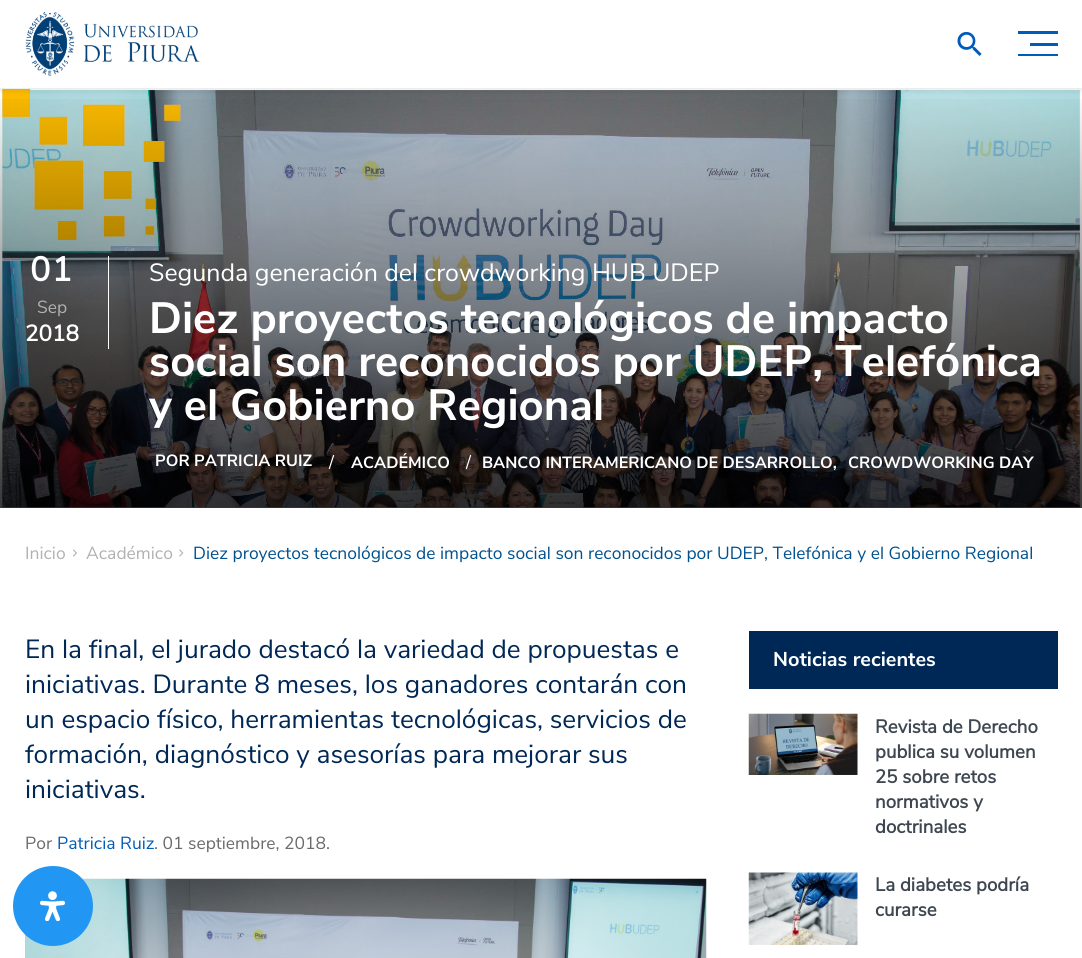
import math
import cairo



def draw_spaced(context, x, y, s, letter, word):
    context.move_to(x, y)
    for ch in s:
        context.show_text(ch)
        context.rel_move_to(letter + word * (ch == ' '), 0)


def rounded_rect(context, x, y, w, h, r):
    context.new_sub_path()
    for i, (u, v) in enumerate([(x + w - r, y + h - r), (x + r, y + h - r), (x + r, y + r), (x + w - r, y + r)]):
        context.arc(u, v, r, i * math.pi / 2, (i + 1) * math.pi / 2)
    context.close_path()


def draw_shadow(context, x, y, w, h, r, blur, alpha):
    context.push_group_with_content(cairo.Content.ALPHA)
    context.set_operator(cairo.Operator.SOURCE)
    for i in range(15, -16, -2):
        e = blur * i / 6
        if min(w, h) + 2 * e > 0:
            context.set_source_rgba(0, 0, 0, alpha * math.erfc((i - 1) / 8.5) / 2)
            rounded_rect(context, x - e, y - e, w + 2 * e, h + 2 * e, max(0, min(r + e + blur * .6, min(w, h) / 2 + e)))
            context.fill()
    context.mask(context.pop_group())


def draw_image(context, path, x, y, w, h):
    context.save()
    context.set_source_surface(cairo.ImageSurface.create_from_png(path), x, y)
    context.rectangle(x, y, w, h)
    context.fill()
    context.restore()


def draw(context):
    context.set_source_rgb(1, 1, 1)
    context.paint()
    draw_image(context, "images/3.png", 0, 88, 1081, 420)
    gradient = cairo.LinearGradient(541, 87, 541, 571)
    gradient.add_color_stop_rgba(0, 0, 0, 0, 0)
    gradient.add_color_stop_rgba(1, 0, 0, 0, 0.9)
    context.set_source(gradient)
    context.rectangle(0, 99, 1082, 409)
    context.fill()
    context.set_source_rgb(0, 0, 0)
    draw_shadow(context, 0, 4, 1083, 87, 0, 2.5, 0.08)
    context.set_source_rgb(1, 1, 1)
    context.rectangle(0, 1, 1082, 87)
    context.fill()
    draw_image(context, "images/1.png", 25, 12, 175, 64)
    draw_image(context, "images/2.png", 957, 31, 25, 25)
    context.set_source_rgb(0, 92 / 255, 185 / 255)
    context.rectangle(1018, 31, 40, 3)
    context.fill()
    context.rectangle(1030, 43, 28, 3)
    context.fill()
    context.rectangle(1018, 54, 40, 2)
    context.fill()
    context.set_source_rgb(1, 1, 1)
    context.rectangle(108, 256, 1, 93)
    context.fill()
    draw_image(context, "images/4.png", 73, 549, 4, 8)
    draw_image(context, "images/5.png", 179, 549, 5, 8)
    draw_image(context, "images/6.png", 25, 878, 682, 80)
    context.set_source_rgb(0, 40 / 255, 86 / 255)
    context.rectangle(749, 631, 309, 58)
    context.fill()
    draw_image(context, "images/7.png", 748, 713, 110, 62)
    draw_image(context, "images/8.png", 748, 872, 110, 73)
    context.set_source_rgb(33 / 255, 150 / 255, 243 / 255)
    context.arc(53, 906, 40, 0, 2 * math.pi)
    context.fill()
    draw_image(context, "images/9.png", 40, 891, 25, 30)
    context.select_font_face("Nunito Sans", cairo.FontSlant.NORMAL, cairo.FontWeight.BOLD)
    context.set_font_size(34)
    context.set_source_rgb(1, 1, 1)
    draw_spaced(context, 30, 281, "01", 1, 0)
    context.select_font_face("Nunito Sans")
    context.set_font_size(17.5)
    context.set_source_rgb(177 / 255, 177 / 255, 177 / 255)
    context.move_to(37, 313)
    context.show_text("Sep")
    context.select_font_face("Nunito Sans", cairo.FontSlant.NORMAL, cairo.FontWeight.BOLD)
    context.set_font_size(22.5)
    context.set_source_rgb(1, 1, 1)
    context.move_to(25, 341)
    context.show_text("2018")
    context.select_font_face("Nunito Sans")
    context.set_font_size(25)
    context.move_to(149, 281)
    context.show_text("Segunda generación del crowdworking HUB UDEP")
    context.select_font_face("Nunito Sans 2", cairo.FontSlant.NORMAL, cairo.FontWeight.BOLD)
    context.set_font_size(43.75)
    context.move_to(149, 333)
    context.show_text("Diez proyectos tecnológicos de impacto")
    context.move_to(149, 376)
    context.show_text("social son reconocidos por UDEP, Telefónica")
    context.move_to(149, 420)
    context.show_text("y el Gobierno Regional")
    context.set_font_size(16.25)
    context.move_to(155, 466)
    context.show_text("POR PATRICIA RUIZ")
    context.select_font_face("Nunito Sans")
    context.set_font_size(17.5)
    context.move_to(329, 468)
    context.show_text("/")
    context.select_font_face("Nunito Sans 2", cairo.FontSlant.NORMAL, cairo.FontWeight.BOLD)
    context.set_font_size(16.25)
    context.move_to(351, 468)
    context.show_text("ACADÉMICO")
    context.select_font_face("Nunito Sans")
    context.set_font_size(17.5)
    context.move_to(466, 468)
    context.show_text("/")
    context.select_font_face("Nunito Sans 2", cairo.FontSlant.NORMAL, cairo.FontWeight.BOLD)
    context.set_font_size(16.25)
    context.move_to(482, 468)
    context.show_text("BANCO INTERAMERICANO DE DESARROLLO,")
    context.move_to(848, 468)
    context.show_text("CROWDWORKING DAY")
    context.select_font_face("Nunito Sans")
    context.set_font_size(17.5)
    context.set_source_rgb(177 / 255, 177 / 255, 177 / 255)
    context.move_to(25, 559)
    context.show_text("Inicio")
    context.move_to(86, 559)
    context.show_text("Académico")
    context.set_source_rgb(0, 81 / 255, 142 / 255)
    context.move_to(193, 559)
    context.show_text("Diez proyectos tecnológicos de impacto social son reconocidos por UDEP, Telefónica y el Gobierno Regional")
    context.set_font_size(26.25)
    context.set_source_rgb(0, 40 / 255, 86 / 255)
    context.move_to(25, 658)
    context.show_text("En la final, el jurado destacó la variedad de propuestas e")
    context.move_to(25, 693)
    context.show_text("iniciativas. Durante 8 meses, los ganadores contarán con")
    context.move_to(25, 728)
    context.show_text("un espacio físico, herramientas tecnológicas, servicios de")
    context.move_to(25, 763)
    context.show_text("formación, diagnóstico y asesorías para mejorar sus")
    context.move_to(25, 798)
    context.show_text("iniciativas.")
    context.set_font_size(17.5)
    context.set_source_rgb(107 / 255, 107 / 255, 107 / 255)
    context.move_to(25, 849)
    context.show_text("Por")
    context.set_source_rgb(0, 92 / 255, 185 / 255)
    context.move_to(57, 849)
    context.show_text("Patricia Ruiz")
    context.set_source_rgb(107 / 255, 107 / 255, 107 / 255)
    context.move_to(154, 849)
    context.show_text(". 01 septiembre, 2018.")
    context.select_font_face("Nunito Sans 2", cairo.FontSlant.NORMAL, cairo.FontWeight.BOLD)
    context.set_font_size(20)
    context.set_source_rgb(1, 1, 1)
    context.move_to(773, 666)
    context.show_text("Noticias recientes")
    context.select_font_face("Nunito Sans", cairo.FontSlant.NORMAL, cairo.FontWeight.BOLD)
    context.set_font_size(18.75)
    context.set_source_rgb(62 / 255, 71 / 255, 81 / 255)
    context.move_to(875, 733)
    context.show_text("Revista de Derecho")
    context.move_to(875, 758)
    context.show_text("publica su volumen")
    context.move_to(875, 783)
    context.show_text("25 sobre retos")
    context.move_to(875, 808)
    context.show_text("normativos y")
    context.move_to(875, 833)
    context.show_text("doctrinales")
    context.move_to(875, 891)
    context.show_text("La diabetes podría")
    context.move_to(875, 916)
    context.show_text("curarse")


surface = cairo.ImageSurface(cairo.Format.RGB24, 1082, 958)
context = cairo.Context(surface)
options = cairo.FontOptions()
options.set_hint_metrics(cairo.HintMetrics.OFF)
options.set_hint_style(cairo.HintStyle.NONE)
context.set_font_options(options)
context.set_miter_limit(4)
draw(context)
surface.write_to_png("out.png")
